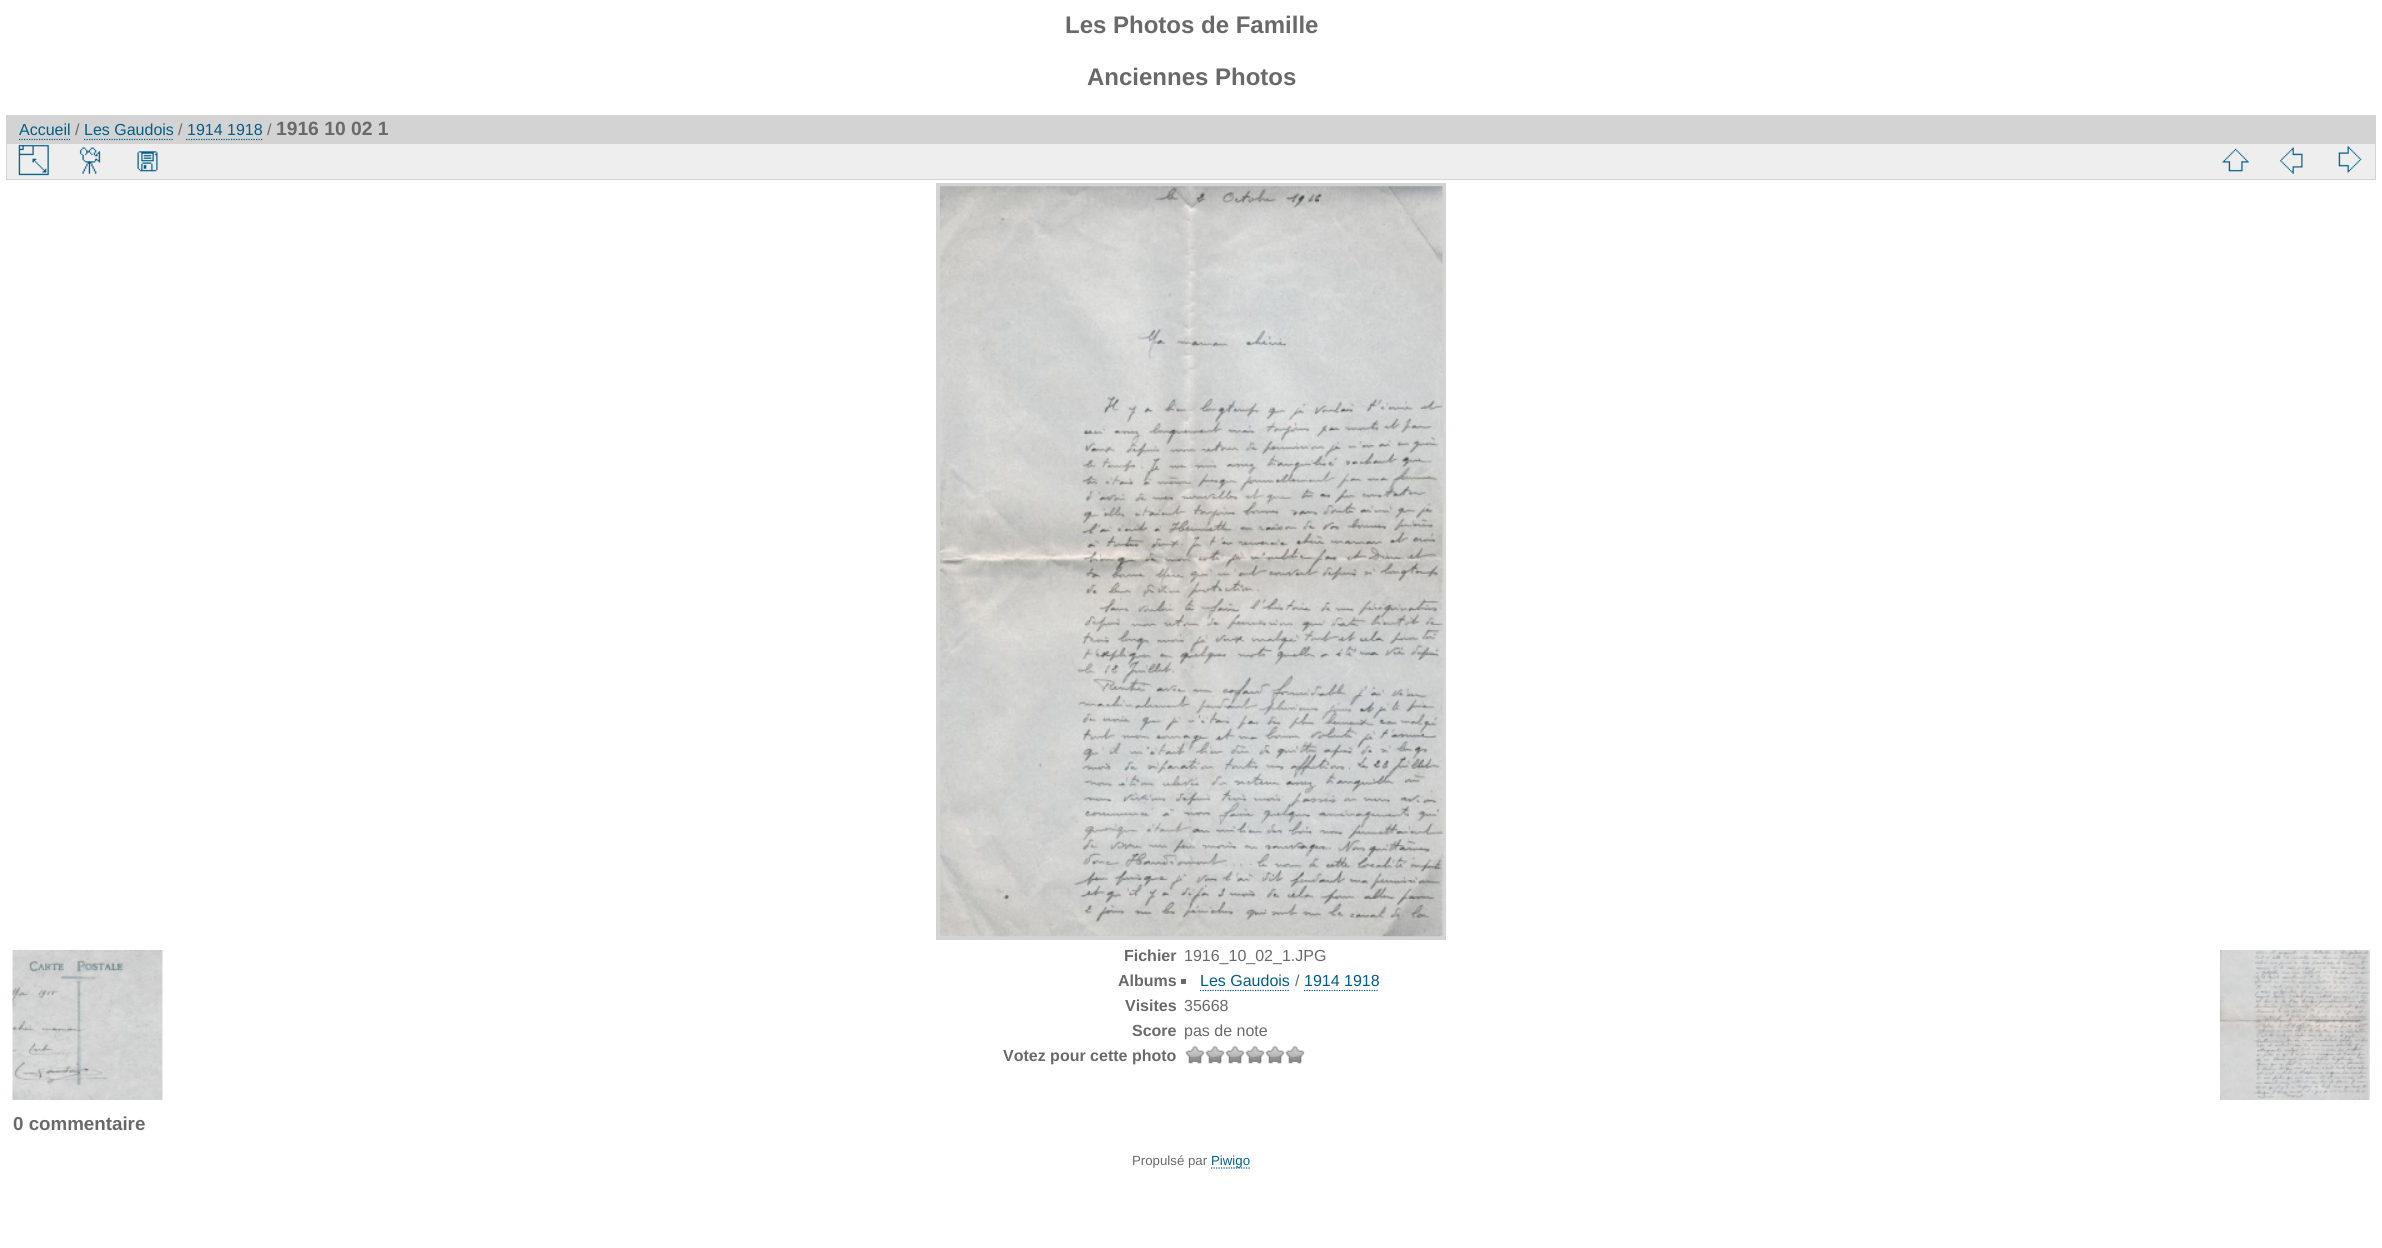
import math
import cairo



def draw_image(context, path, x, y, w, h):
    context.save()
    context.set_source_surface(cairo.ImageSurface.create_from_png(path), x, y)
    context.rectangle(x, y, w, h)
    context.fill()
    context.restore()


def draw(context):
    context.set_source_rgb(1, 1, 1)
    context.paint()
    context.set_source_rgb(211 / 255, 211 / 255, 211 / 255)
    context.rectangle(6, 115, 2370, 28)
    context.fill()
    context.new_path()
    context.move_to(19, 139.5)
    context.line_to(70, 139.5)
    context.set_source_rgb(0, 94 / 255, 137 / 255)
    context.set_line_width(1.2)
    context.set_dash([1.25, 1.25])
    context.stroke()
    context.new_path()
    context.move_to(84, 139.5)
    context.line_to(174, 139.5)
    context.stroke()
    context.new_path()
    context.move_to(186, 139.5)
    context.line_to(262.5, 139.5)
    context.stroke()
    context.set_source_rgb(238 / 255, 238 / 255, 238 / 255)
    context.rectangle(6.5, 143.5, 2369, 36)
    context.fill_preserve()
    context.set_source_rgb(211 / 255, 211 / 255, 211 / 255)
    context.set_line_width(1)
    context.set_dash([])
    context.stroke()
    draw_image(context, "images/1.png", 18, 144, 31, 32)
    draw_image(context, "images/2.png", 79, 147, 22, 27)
    draw_image(context, "images/3.png", 137, 151, 21, 21)
    draw_image(context, "images/4.png", 2222, 148, 27, 24)
    draw_image(context, "images/5.png", 2279, 147, 24, 27)
    draw_image(context, "images/6.png", 2338, 146, 24, 27)
    context.rectangle(938, 185, 506, 753)
    context.set_line_width(4)
    context.stroke()
    draw_image(context, "images/7.png", 940, 186, 503, 751)
    context.set_source_rgb(105 / 255, 105 / 255, 105 / 255)
    context.rectangle(1181, 979, 5, 5)
    context.fill()
    context.new_path()
    context.move_to(1200, 990.5)
    context.line_to(1290, 990.5)
    context.set_source_rgb(0, 94 / 255, 137 / 255)
    context.set_line_width(1.2)
    context.set_dash([1.25, 1.25])
    context.stroke()
    context.new_path()
    context.move_to(1304, 990.5)
    context.line_to(1379, 990.5)
    context.stroke()
    draw_image(context, "images/8.png", 1185, 1046, 20, 18)
    draw_image(context, "images/8.png", 1205, 1046, 20, 18)
    draw_image(context, "images/8.png", 1225, 1046, 20, 18)
    draw_image(context, "images/8.png", 1245, 1046, 20, 18)
    draw_image(context, "images/8.png", 1265, 1046, 20, 18)
    draw_image(context, "images/8.png", 1285, 1046, 20, 18)
    draw_image(context, "images/9.png", 12, 950, 151, 150)
    draw_image(context, "images/10.png", 2220, 950, 150, 150)
    context.new_path()
    context.move_to(1211, 1168)
    context.line_to(1250, 1168)
    context.stroke()
    context.select_font_face("Liberation Sans", cairo.FontSlant.NORMAL, cairo.FontWeight.BOLD)
    context.set_font_size(24)
    context.set_source_rgb(105 / 255, 105 / 255, 105 / 255)
    context.move_to(1065, 33)
    context.show_text("Les Photos de Famille")
    context.move_to(1087, 85)
    context.show_text("Anciennes Photos")
    context.select_font_face("Liberation Sans")
    context.set_font_size(16)
    context.set_source_rgb(0, 94 / 255, 137 / 255)
    context.move_to(19, 135)
    context.show_text("Accueil")
    context.set_source_rgb(105 / 255, 105 / 255, 105 / 255)
    context.move_to(75, 135)
    context.show_text("/")
    context.set_source_rgb(0, 94 / 255, 137 / 255)
    context.move_to(84, 135)
    context.show_text("Les Gaudois")
    context.set_source_rgb(105 / 255, 105 / 255, 105 / 255)
    context.move_to(178, 135)
    context.show_text("/")
    context.set_source_rgb(0, 94 / 255, 137 / 255)
    context.move_to(187, 135)
    context.show_text("1914 1918")
    context.set_source_rgb(105 / 255, 105 / 255, 105 / 255)
    context.move_to(267, 135)
    context.show_text("/")
    context.select_font_face("Liberation Sans", cairo.FontSlant.NORMAL, cairo.FontWeight.BOLD)
    context.set_font_size(19.25)
    context.move_to(276, 135)
    context.show_text("1916 10 02 1")
    context.set_font_size(16)
    context.move_to(1124, 961)
    context.show_text("Fichier")
    context.select_font_face("Liberation Sans")
    context.move_to(1184, 961)
    context.show_text("1916_10_02_1.JPG")
    context.select_font_face("Liberation Sans", cairo.FontSlant.NORMAL, cairo.FontWeight.BOLD)
    context.move_to(1118, 986)
    context.show_text("Albums")
    context.select_font_face("Liberation Sans")
    context.set_source_rgb(0, 94 / 255, 137 / 255)
    context.move_to(1200, 986)
    context.show_text("Les Gaudois")
    context.set_source_rgb(105 / 255, 105 / 255, 105 / 255)
    context.move_to(1295, 986)
    context.show_text("/")
    context.set_source_rgb(0, 94 / 255, 137 / 255)
    context.move_to(1304, 986)
    context.show_text("1914 1918")
    context.select_font_face("Liberation Sans", cairo.FontSlant.NORMAL, cairo.FontWeight.BOLD)
    context.set_source_rgb(105 / 255, 105 / 255, 105 / 255)
    context.move_to(1125, 1011)
    context.show_text("Visites")
    context.select_font_face("Liberation Sans")
    context.move_to(1184, 1011)
    context.show_text("35668")
    context.select_font_face("Liberation Sans", cairo.FontSlant.NORMAL, cairo.FontWeight.BOLD)
    context.move_to(1132, 1036)
    context.show_text("Score")
    context.select_font_face("Liberation Sans")
    context.move_to(1184, 1036)
    context.show_text("pas de note")
    context.select_font_face("Liberation Sans", cairo.FontSlant.NORMAL, cairo.FontWeight.BOLD)
    context.move_to(1003, 1061)
    context.show_text("Votez pour cette photo")
    context.set_font_size(18.75)
    context.move_to(13, 1130)
    context.show_text("0 commentaire")
    context.select_font_face("Liberation Sans")
    context.set_font_size(13.25)
    context.move_to(1132, 1165)
    context.show_text("Propulsé par")
    context.set_source_rgb(0, 94 / 255, 137 / 255)
    context.move_to(1211, 1165)
    context.show_text("Piwigo")


surface = cairo.ImageSurface(cairo.Format.RGB24, 2382, 1248)
context = cairo.Context(surface)
options = cairo.FontOptions()
options.set_hint_metrics(cairo.HintMetrics.OFF)
options.set_hint_style(cairo.HintStyle.NONE)
context.set_font_options(options)
context.set_miter_limit(4)
draw(context)
surface.write_to_png("out.png")
